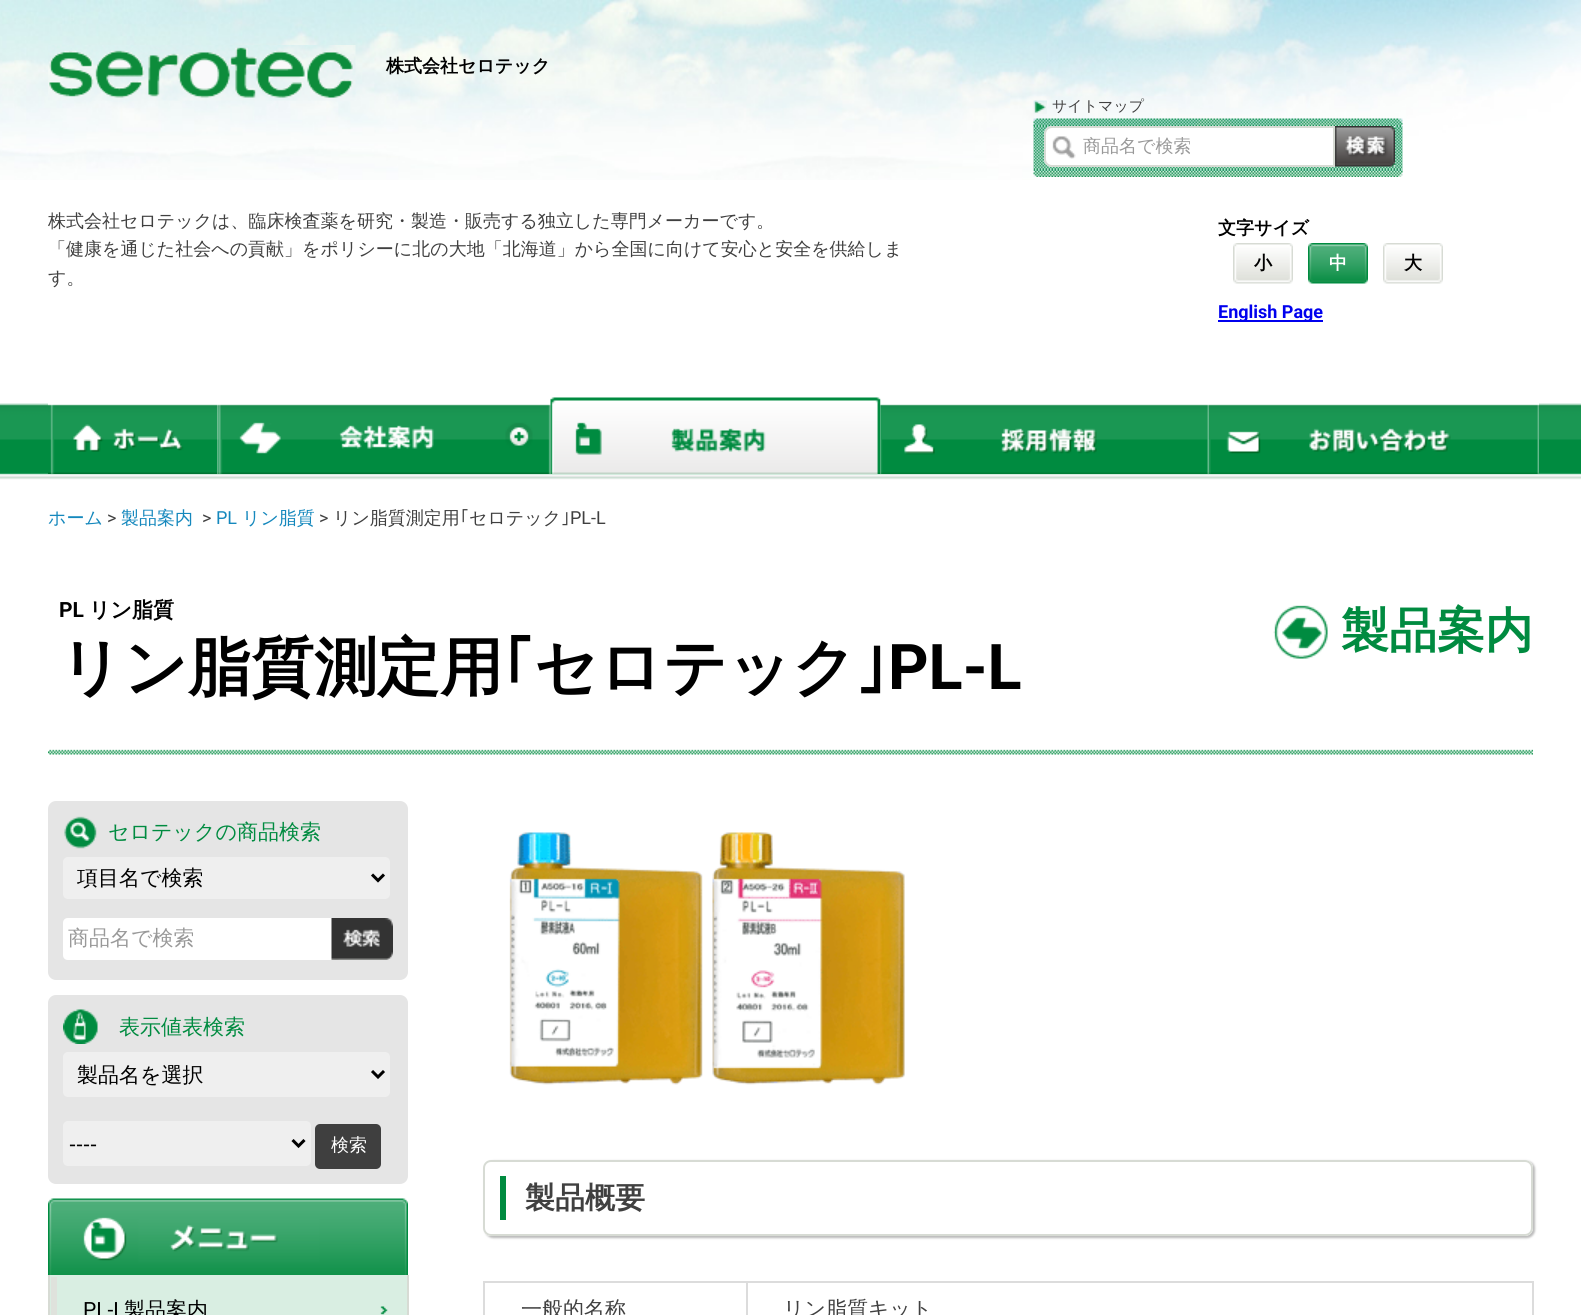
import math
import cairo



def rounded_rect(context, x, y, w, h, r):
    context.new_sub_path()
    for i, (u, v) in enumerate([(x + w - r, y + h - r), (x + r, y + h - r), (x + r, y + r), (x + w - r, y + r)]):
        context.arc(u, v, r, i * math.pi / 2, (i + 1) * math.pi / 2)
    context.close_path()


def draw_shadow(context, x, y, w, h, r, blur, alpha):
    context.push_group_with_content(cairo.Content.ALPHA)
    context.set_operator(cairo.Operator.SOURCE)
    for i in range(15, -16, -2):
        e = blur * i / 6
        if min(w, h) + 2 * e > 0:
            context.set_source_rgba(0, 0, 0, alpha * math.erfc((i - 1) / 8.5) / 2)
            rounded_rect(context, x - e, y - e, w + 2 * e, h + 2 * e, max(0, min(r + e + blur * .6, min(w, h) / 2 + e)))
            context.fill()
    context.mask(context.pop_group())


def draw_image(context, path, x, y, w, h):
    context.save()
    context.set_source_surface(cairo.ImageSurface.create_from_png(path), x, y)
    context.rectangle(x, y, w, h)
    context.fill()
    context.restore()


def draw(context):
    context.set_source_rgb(1, 1, 1)
    context.paint()
    draw_image(context, "images/1.png", 0, 0, 1581, 180)
    draw_image(context, "images/2.png", 48, 45, 308, 56)
    draw_image(context, "images/3.png", 1033, 100, 14, 14)
    draw_image(context, "images/4.png", 1033, 118, 370, 8)
    draw_image(context, "images/5.png", 1033, 126, 370, 45)
    context.set_source_rgb(1, 1, 1)
    context.new_path()
    context.move_to(1052, 126)
    context.line_to(1335, 126)
    context.line_to(1335, 167)
    context.line_to(1052, 167)
    context.curve_to(1047.5, 167, 1044, 163.5, 1044, 159)
    context.line_to(1044, 134)
    context.curve_to(1044, 129.5, 1047.5, 126, 1052, 126)
    context.close_path()
    context.fill()
    draw_image(context, "images/6.png", 1052, 136, 24, 23)
    context.new_path()
    context.move_to(1052, 127)
    context.line_to(1334, 127)
    context.line_to(1334, 166)
    context.line_to(1052, 166)
    context.curve_to(1048, 166, 1045, 163, 1045, 159)
    context.line_to(1045, 134)
    context.curve_to(1045, 130, 1048, 127, 1052, 127)
    context.close_path()
    context.set_source_rgb(215 / 255, 219 / 255, 212 / 255)
    context.stroke()
    draw_image(context, "images/7.png", 1335, 126, 60, 41)
    draw_image(context, "images/8.png", 1033, 171, 370, 6)
    draw_image(context, "images/9.png", 1233, 243, 60, 41)
    draw_image(context, "images/10.png", 1308, 243, 60, 41)
    draw_image(context, "images/11.png", 1383, 243, 60, 41)
    context.set_source_rgb(0, 0, 238 / 255)
    context.rectangle(1218, 320, 105, 2)
    context.fill()
    draw_image(context, "images/12.png", 0, 403, 1581, 77)
    context.set_source_rgb(1, 1, 1)
    context.rectangle(48, 403, 833, 71)
    context.fill()
    draw_image(context, "images/15.png", 48, 404, 170, 70)
    draw_image(context, "images/17.png", 217, 404, 334, 70)
    draw_image(context, "images/13.png", 550, 397, 331, 77)
    draw_image(context, "images/14.png", 880, 398, 329, 76)
    context.rectangle(1209, 403, 330, 1)
    context.fill()
    draw_image(context, "images/16.png", 1209, 404, 330, 70)
    draw_image(context, "images/18.png", 48, 749, 1485, 6)
    draw_image(context, "images/19.png", 1273, 605, 55, 54)
    context.set_source_rgb(229 / 255, 229 / 255, 229 / 255)
    rounded_rect(context, 48, 801, 360, 179, 8)
    context.fill()
    draw_image(context, "images/20.png", 64, 816, 33, 33)
    context.set_source_rgb(239 / 255, 239 / 255, 239 / 255)
    rounded_rect(context, 63, 857, 327, 42, 5)
    context.fill()
    context.new_path()
    context.move_to(372, 874.5)
    context.line_to(378, 880.5)
    context.line_to(384, 874.5)
    context.set_source_rgb(0, 0, 0)
    context.set_line_width(3)
    context.stroke()
    context.set_source_rgb(1, 1, 1)
    context.new_path()
    context.move_to(68, 918)
    context.line_to(332, 918)
    context.line_to(332, 960)
    context.line_to(68, 960)
    context.curve_to(65, 960, 63, 958, 63, 955)
    context.line_to(63, 923)
    context.curve_to(63, 920, 65, 918, 68, 918)
    context.close_path()
    context.fill()
    draw_image(context, "images/21.png", 331, 918, 62, 42)
    context.set_source_rgb(229 / 255, 229 / 255, 229 / 255)
    rounded_rect(context, 48, 995, 360, 189, 8)
    context.fill()
    draw_image(context, "images/22.png", 63, 1009, 35, 35)
    context.set_source_rgb(239 / 255, 239 / 255, 239 / 255)
    rounded_rect(context, 63, 1052, 327, 45, 5)
    context.fill()
    context.new_path()
    context.move_to(372, 1071)
    context.line_to(378, 1077)
    context.line_to(384, 1071)
    context.set_source_rgb(0, 0, 0)
    context.stroke()
    context.set_source_rgb(239 / 255, 239 / 255, 239 / 255)
    rounded_rect(context, 63, 1121, 248, 45, 5)
    context.fill()
    context.new_path()
    context.move_to(292.5, 1140)
    context.line_to(298.5, 1146)
    context.line_to(304.5, 1140)
    context.set_source_rgb(0, 0, 0)
    context.stroke()
    context.set_source_rgb(63 / 255, 63 / 255, 63 / 255)
    rounded_rect(context, 315, 1124, 66, 45, 5)
    context.fill()
    draw_image(context, "images/23.png", 48, 1198, 360, 77)
    context.set_source_rgb(217 / 255, 238 / 255, 226 / 255)
    context.rectangle(50, 1275, 357, 40)
    context.fill()
    context.set_source_rgb(215 / 255, 219 / 255, 212 / 255)
    context.rectangle(407, 1275, 2, 40)
    context.fill()
    context.rectangle(48, 1275, 2, 40)
    context.fill()
    draw_image(context, "images/24.png", 380, 1306, 8, 9)
    context.set_source_rgb(223 / 255, 226 / 255, 220 / 255)
    context.rectangle(51, 1277, 6, 38)
    context.fill()
    draw_image(context, "images/25.png", 509, 832, 396, 253)
    context.save()
    context.set_fill_rule(cairo.FillRule.EVEN_ODD)
    context.new_path()
    context.move_to(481, 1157)
    context.line_to(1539, 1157)
    context.line_to(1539, 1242)
    context.line_to(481, 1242)
    context.close_path()
    context.move_to(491, 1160)
    context.line_to(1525, 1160)
    context.curve_to(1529.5, 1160, 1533, 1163.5, 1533, 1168)
    context.line_to(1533, 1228)
    context.curve_to(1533, 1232.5, 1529.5, 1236, 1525, 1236)
    context.line_to(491, 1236)
    context.curve_to(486.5, 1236, 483, 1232.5, 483, 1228)
    context.line_to(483, 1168)
    context.curve_to(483, 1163.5, 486.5, 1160, 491, 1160)
    context.close_path()
    context.clip()
    context.set_source_rgb(187 / 255, 187 / 255, 187 / 255)
    draw_shadow(context, 485, 1161, 1050, 77, 8, 1, 1)
    context.restore()
    rounded_rect(context, 484, 1161, 1048, 74, 7)
    context.set_source_rgb(215 / 255, 219 / 255, 212 / 255)
    context.set_line_width(2)
    context.stroke()
    context.set_source_rgb(0, 139 / 255, 64 / 255)
    context.rectangle(500, 1176, 6, 44)
    context.fill()
    context.set_source_rgb(220 / 255, 220 / 255, 220 / 255)
    context.rectangle(746, 1281, 787, 2)
    context.fill()
    context.rectangle(746, 1281, 2, 34)
    context.fill()
    context.rectangle(483, 1281, 264, 2)
    context.fill()
    context.rectangle(483, 1281, 2, 34)
    context.fill()
    context.rectangle(1532, 1281, 2, 34)
    context.fill()
    context.select_font_face("WenQuanYi Zen Hei", cairo.FontSlant.NORMAL, cairo.FontWeight.BOLD)
    context.set_font_size(18)
    context.set_source_rgb(0, 0, 0)
    context.move_to(386, 72)
    context.show_text("株式会社セロテック")
    context.select_font_face("WenQuanYi Zen Hei Medium")
    context.set_font_size(15)
    context.set_source_rgb(64 / 255, 64 / 255, 64 / 255)
    context.move_to(1052, 111)
    context.show_text("サイトマップ")
    context.set_font_size(18)
    context.set_source_rgb(153 / 255, 153 / 255, 153 / 255)
    context.move_to(1083, 152)
    context.show_text("商品名で検索")
    context.set_source_rgb(64 / 255, 64 / 255, 64 / 255)
    context.move_to(48, 227)
    context.show_text("株式会社セロテックは、臨床検査薬を研究・製造・販売する独立した専門メーカーです。")
    context.move_to(48, 255)
    context.show_text("「健康を通じた社会への貢献」をポリシーに北の大地「北海道」から全国に向けて安心と安全を供給しま")
    context.move_to(48, 284)
    context.show_text("す。")
    context.select_font_face("WenQuanYi Zen Hei", cairo.FontSlant.NORMAL, cairo.FontWeight.BOLD)
    context.set_source_rgb(0, 0, 0)
    context.move_to(1218, 234)
    context.show_text("文字サイズ")
    context.move_to(1254, 269)
    context.show_text("小")
    context.set_source_rgb(1, 1, 1)
    context.move_to(1329, 269)
    context.show_text("中")
    context.set_source_rgb(0, 0, 0)
    context.move_to(1404, 269)
    context.show_text("大")
    context.select_font_face("Roboto", cairo.FontSlant.NORMAL, cairo.FontWeight.BOLD)
    context.set_source_rgb(0, 0, 238 / 255)
    context.move_to(1218, 318)
    context.show_text("English Page")
    context.select_font_face("WenQuanYi Zen Hei Medium")
    context.set_source_rgb(21 / 255, 136 / 255, 189 / 255)
    context.move_to(48, 524)
    context.show_text("ホーム")
    context.select_font_face("Roboto")
    context.set_source_rgb(64 / 255, 64 / 255, 64 / 255)
    context.move_to(107, 524)
    context.show_text(">")
    context.select_font_face("WenQuanYi Zen Hei Medium")
    context.set_source_rgb(21 / 255, 136 / 255, 189 / 255)
    context.move_to(121, 524)
    context.show_text("製品案内")
    context.select_font_face("Roboto")
    context.set_source_rgb(64 / 255, 64 / 255, 64 / 255)
    context.move_to(202, 524)
    context.show_text(">")
    context.set_source_rgb(21 / 255, 136 / 255, 189 / 255)
    context.move_to(216, 524)
    context.show_text("PL")
    context.select_font_face("WenQuanYi Zen Hei Medium")
    context.move_to(242, 524)
    context.show_text("リン脂質")
    context.select_font_face("Roboto")
    context.set_source_rgb(64 / 255, 64 / 255, 64 / 255)
    context.move_to(319, 524)
    context.show_text(">")
    context.select_font_face("WenQuanYi Zen Hei Medium")
    context.move_to(333, 524)
    context.show_text("リン脂質測定用")
    context.select_font_face("IPAPGothic")
    context.move_to(460, 524)
    context.show_text("｢")
    context.select_font_face("WenQuanYi Zen Hei Medium")
    context.move_to(469, 524)
    context.show_text("セロテック")
    context.select_font_face("IPAPGothic")
    context.move_to(561, 524)
    context.show_text("｣")
    context.select_font_face("Roboto")
    context.move_to(570, 524)
    context.show_text("PL-L")
    context.select_font_face("Roboto", cairo.FontSlant.NORMAL, cairo.FontWeight.BOLD)
    context.set_font_size(21)
    context.set_source_rgb(0, 0, 0)
    context.move_to(59, 617)
    context.show_text("PL")
    context.select_font_face("WenQuanYi Zen Hei", cairo.FontSlant.NORMAL, cairo.FontWeight.BOLD)
    context.move_to(89, 617)
    context.show_text("リン脂質")
    context.set_font_size(63)
    context.move_to(59, 689)
    context.show_text("リン脂質測定用")
    context.select_font_face("IPAPGothic", cairo.FontSlant.NORMAL, cairo.FontWeight.BOLD)
    context.move_to(502, 689)
    context.show_text("｢")
    context.select_font_face("WenQuanYi Zen Hei", cairo.FontSlant.NORMAL, cairo.FontWeight.BOLD)
    context.move_to(534, 689)
    context.show_text("セロテック")
    context.select_font_face("IPAPGothic", cairo.FontSlant.NORMAL, cairo.FontWeight.BOLD)
    context.move_to(856, 689)
    context.show_text("｣")
    context.select_font_face("Roboto", cairo.FontSlant.NORMAL, cairo.FontWeight.BOLD)
    context.move_to(888, 689)
    context.show_text("PL-L")
    context.select_font_face("WenQuanYi Zen Hei", cairo.FontSlant.NORMAL, cairo.FontWeight.BOLD)
    context.set_font_size(48)
    context.set_source_rgb(0, 139 / 255, 64 / 255)
    context.move_to(1341, 647)
    context.show_text("製品案内")
    context.select_font_face("WenQuanYi Zen Hei Medium")
    context.set_font_size(21)
    context.move_to(108, 839)
    context.show_text("セロテックの商品検索")
    context.set_source_rgb(0, 0, 0)
    context.move_to(77, 885)
    context.show_text("項目名で検索")
    context.set_source_rgb(153 / 255, 153 / 255, 153 / 255)
    context.move_to(68, 945)
    context.show_text("商品名で検索")
    context.set_source_rgb(0, 139 / 255, 64 / 255)
    context.move_to(119, 1034)
    context.show_text("表示値表検索")
    context.set_source_rgb(0, 0, 0)
    context.move_to(77, 1082)
    context.show_text("製品名を選択")
    context.select_font_face("Liberation Sans")
    context.move_to(69, 1151)
    context.show_text("----")
    context.select_font_face("WenQuanYi Zen Hei Medium")
    context.set_font_size(18)
    context.set_source_rgb(1, 1, 1)
    context.move_to(331, 1151)
    context.show_text("検索")
    context.select_font_face("Roboto")
    context.set_font_size(21)
    context.set_source_rgb(0, 0, 0)
    context.move_to(83, 1317)
    context.show_text("PL-L")
    context.select_font_face("WenQuanYi Zen Hei Medium")
    context.move_to(124, 1317)
    context.show_text("製品案内")
    context.select_font_face("WenQuanYi Zen Hei", cairo.FontSlant.NORMAL, cairo.FontWeight.BOLD)
    context.set_font_size(30)
    context.set_source_rgb(64 / 255, 64 / 255, 64 / 255)
    context.move_to(525, 1208)
    context.show_text("製品概要")
    context.select_font_face("WenQuanYi Zen Hei Medium")
    context.set_font_size(21)
    context.move_to(521, 1316)
    context.show_text("一般的名称")
    context.move_to(783, 1316)
    context.show_text("リン脂質キット")


surface = cairo.ImageSurface(cairo.Format.RGB24, 1581, 1315)
context = cairo.Context(surface)
options = cairo.FontOptions()
options.set_hint_metrics(cairo.HintMetrics.OFF)
options.set_hint_style(cairo.HintStyle.NONE)
context.set_font_options(options)
context.set_miter_limit(4)
draw(context)
surface.write_to_png("out.png")
